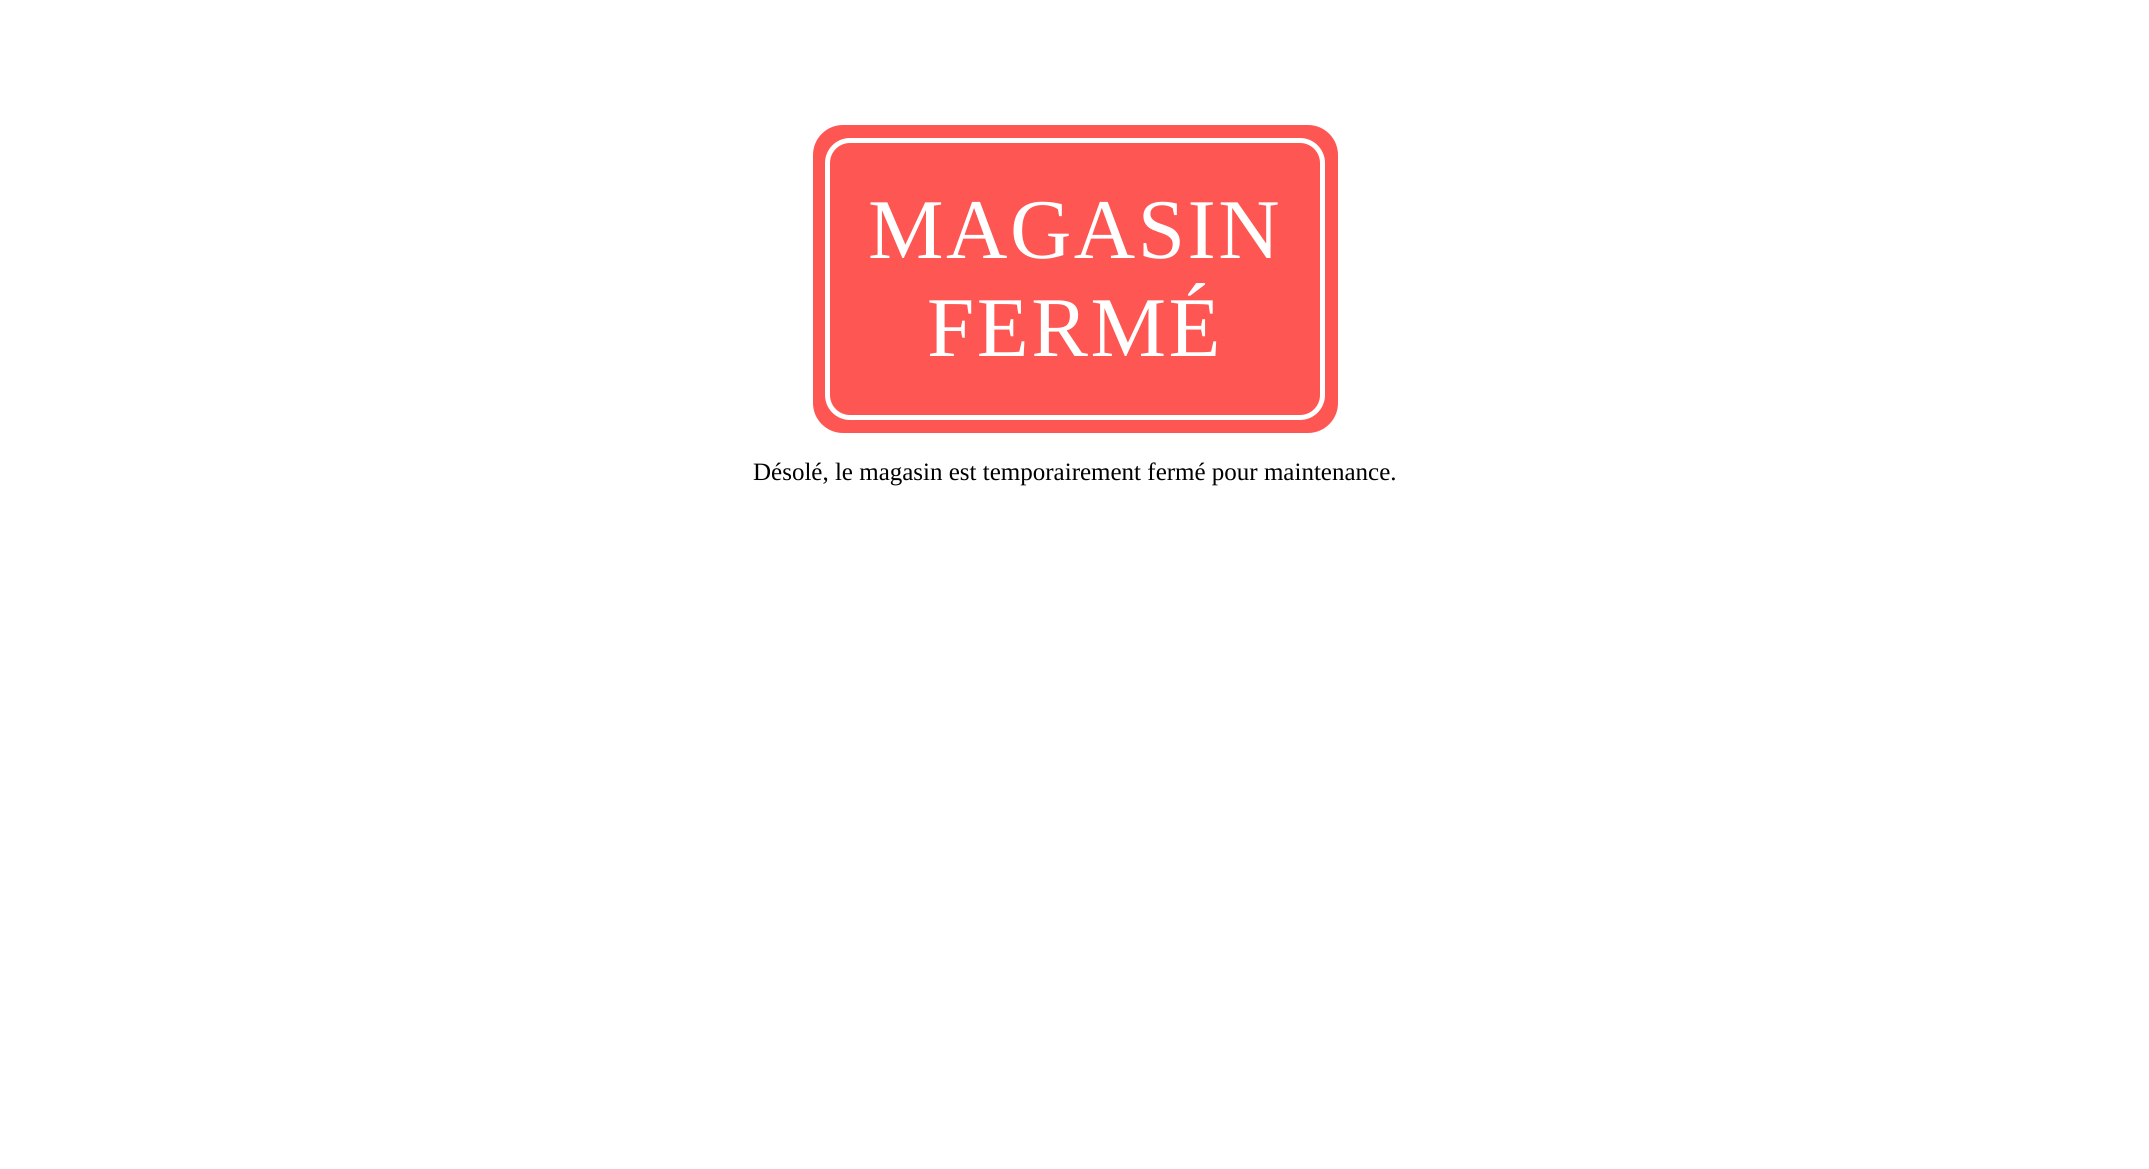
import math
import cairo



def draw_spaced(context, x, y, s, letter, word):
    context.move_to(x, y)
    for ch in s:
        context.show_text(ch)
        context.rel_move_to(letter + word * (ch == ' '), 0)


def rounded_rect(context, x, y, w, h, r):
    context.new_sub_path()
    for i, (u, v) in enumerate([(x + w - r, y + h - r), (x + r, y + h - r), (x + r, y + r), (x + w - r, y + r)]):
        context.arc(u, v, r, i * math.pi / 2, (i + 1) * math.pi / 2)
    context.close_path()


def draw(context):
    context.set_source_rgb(1, 1, 1)
    context.paint()
    context.set_source_rgb(254 / 255, 86 / 255, 82 / 255)
    rounded_rect(context, 813, 125, 525, 308, 30)
    context.fill()
    rounded_rect(context, 827.5, 140.5, 495, 277, 22.5)
    context.set_source_rgb(1, 1, 1)
    context.set_line_width(5)
    context.stroke()
    context.select_font_face("Liberation Serif")
    context.set_font_size(85)
    draw_spaced(context, 868, 258, "MAGASIN", 2.5, 0)
    draw_spaced(context, 927, 356, "FERMÉ", 2.5, 0)
    context.set_font_size(25)
    context.set_source_rgb(0, 0, 0)
    context.move_to(753, 480)
    context.show_text("Désolé, le magasin est temporairement fermé pour maintenance.")


surface = cairo.ImageSurface(cairo.Format.RGB24, 2149, 1169)
context = cairo.Context(surface)
options = cairo.FontOptions()
options.set_hint_metrics(cairo.HintMetrics.OFF)
options.set_hint_style(cairo.HintStyle.NONE)
context.set_font_options(options)
context.set_miter_limit(4)
draw(context)
surface.write_to_png("out.png")
